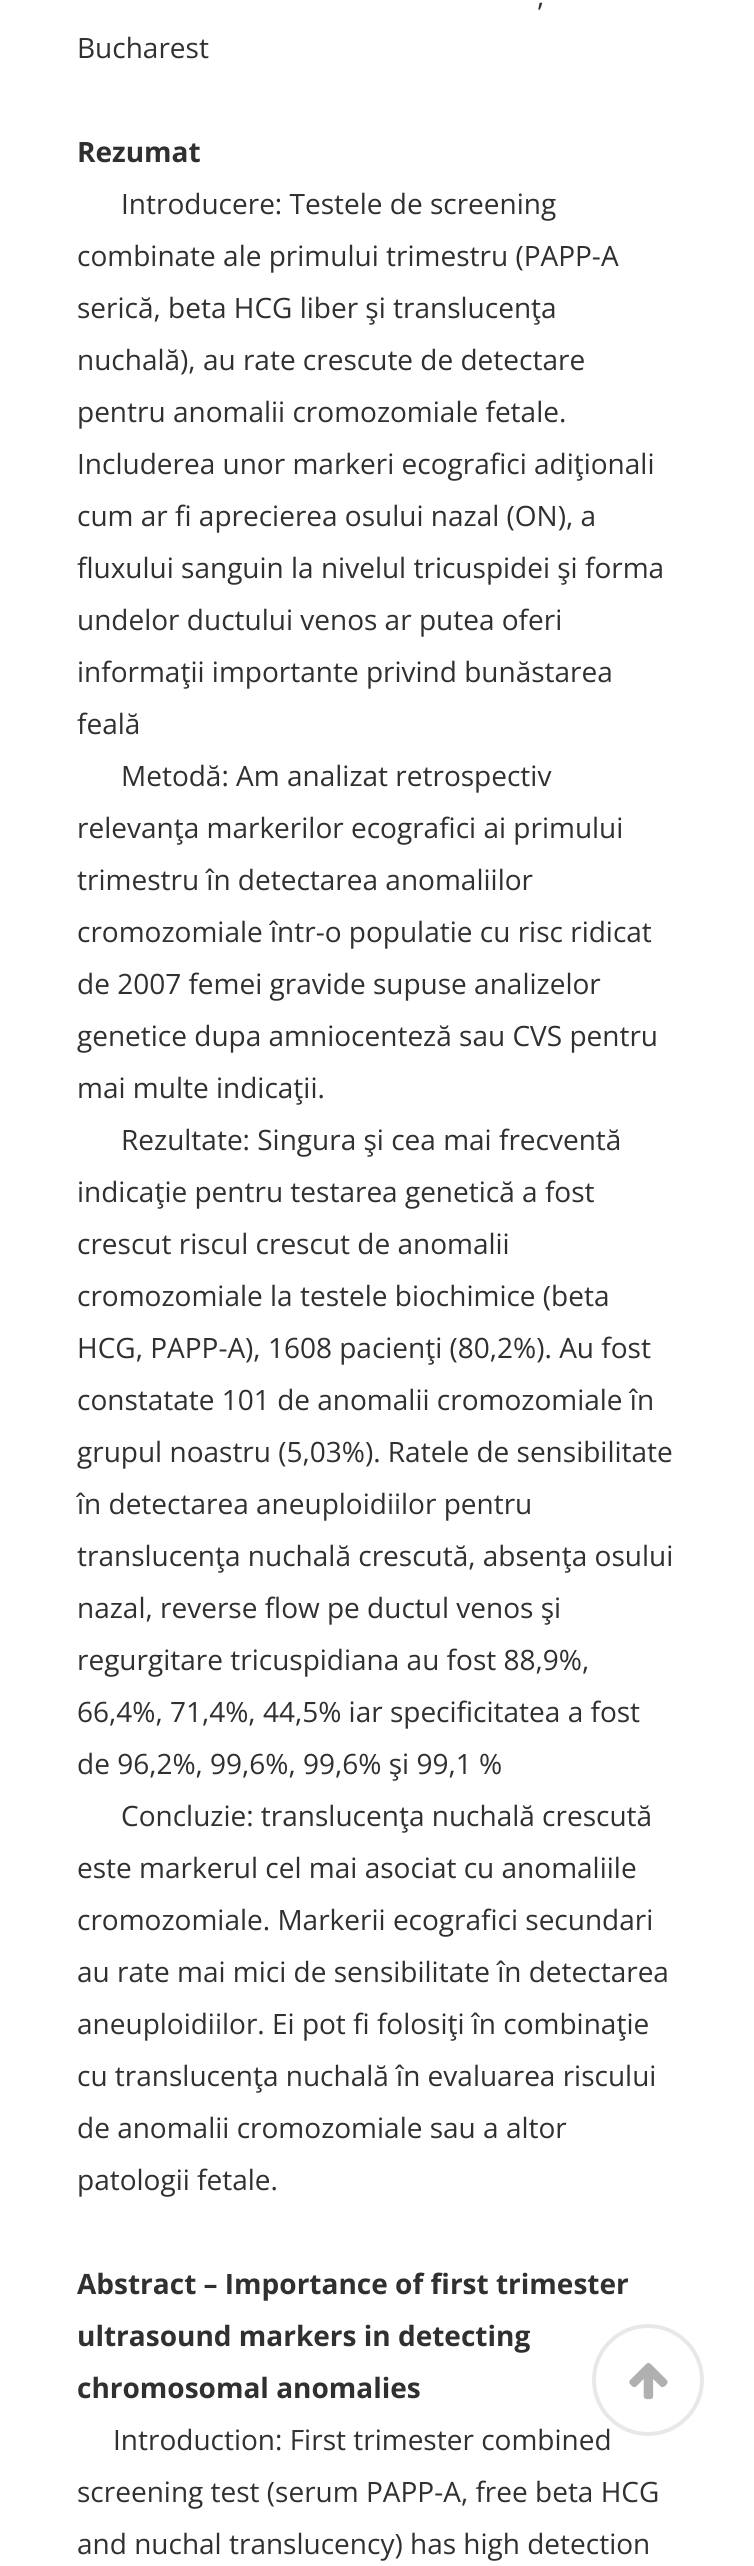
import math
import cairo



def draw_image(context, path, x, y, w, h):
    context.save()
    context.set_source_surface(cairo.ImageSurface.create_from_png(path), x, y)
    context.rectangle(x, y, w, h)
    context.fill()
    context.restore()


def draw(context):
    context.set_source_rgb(1, 1, 1)
    context.paint()
    context.select_font_face("Open Sans")
    context.set_font_size(28)
    context.set_source_rgb(48 / 255, 48 / 255, 48 / 255)
    context.move_to(537, 6)
    context.show_text(",")
    context.move_to(77, 58)
    context.show_text("Bucharest")
    context.select_font_face("Open Sans", cairo.FontSlant.NORMAL, cairo.FontWeight.BOLD)
    context.move_to(77, 162)
    context.show_text("Rezumat")
    context.select_font_face("Open Sans")
    context.move_to(121, 214)
    context.show_text("Introducere: Testele de screening")
    context.move_to(77, 266)
    context.show_text("combinate ale primului trimestru (PAPP-A")
    context.move_to(77, 318)
    context.show_text("serică, beta HCG liber şi translucenţa")
    context.move_to(77, 370)
    context.show_text("nuchală), au rate crescute de detectare")
    context.move_to(77, 422)
    context.show_text("pentru anomalii cromozomiale fetale.")
    context.move_to(77, 474)
    context.show_text("Includerea unor markeri ecografici adiţionali")
    context.move_to(77, 526)
    context.show_text("cum ar fi aprecierea osului nazal (ON), a")
    context.move_to(77, 578)
    context.show_text("fluxului sanguin la nivelul tricuspidei şi forma")
    context.move_to(77, 630)
    context.show_text("undelor ductului venos ar putea oferi")
    context.move_to(77, 682)
    context.show_text("informaţii importante privind bunăstarea")
    context.move_to(77, 734)
    context.show_text("feală")
    context.move_to(121, 786)
    context.show_text("Metodă: Am analizat retrospectiv")
    context.move_to(77, 838)
    context.show_text("relevanţa markerilor ecografici ai primului")
    context.move_to(77, 890)
    context.show_text("trimestru în detectarea anomaliilor")
    context.move_to(77, 942)
    context.show_text("cromozomiale într-o populatie cu risc ridicat")
    context.move_to(77, 994)
    context.show_text("de 2007 femei gravide supuse analizelor")
    context.move_to(77, 1046)
    context.show_text("genetice dupa amniocenteză sau CVS pentru")
    context.move_to(77, 1098)
    context.show_text("mai multe indicaţii.")
    context.move_to(121, 1150)
    context.show_text("Rezultate: Singura şi cea mai frecventă")
    context.move_to(77, 1202)
    context.show_text("indicaţie pentru testarea genetică a fost")
    context.move_to(77, 1254)
    context.show_text("crescut riscul crescut de anomalii")
    context.move_to(77, 1306)
    context.show_text("cromozomiale la testele biochimice (beta")
    context.move_to(77, 1358)
    context.show_text("HCG, PAPP-A), 1608 pacienţi (80,2%). Au fost")
    context.move_to(77, 1410)
    context.show_text("constatate 101 de anomalii cromozomiale în")
    context.move_to(77, 1462)
    context.show_text("grupul noastru (5,03%). Ratele de sensibilitate")
    context.move_to(77, 1514)
    context.show_text("în detectarea aneuploidiilor pentru")
    context.move_to(77, 1566)
    context.show_text("translucenţa nuchală crescută, absenţa osului")
    context.move_to(77, 1618)
    context.show_text("nazal, reverse flow pe ductul venos şi")
    context.move_to(77, 1670)
    context.show_text("regurgitare tricuspidiana au fost 88,9%,")
    context.move_to(77, 1722)
    context.show_text("66,4%, 71,4%, 44,5% iar specificitatea a fost")
    context.move_to(77, 1774)
    context.show_text("de 96,2%, 99,6%, 99,6% şi 99,1 %")
    context.move_to(121, 1826)
    context.show_text("Concluzie: translucenţa nuchală crescută")
    context.move_to(77, 1878)
    context.show_text("este markerul cel mai asociat cu anomaliile")
    context.move_to(77, 1930)
    context.show_text("cromozomiale. Markerii ecografici secundari")
    context.move_to(77, 1982)
    context.show_text("au rate mai mici de sensibilitate în detectarea")
    context.move_to(77, 2034)
    context.show_text("aneuploidiilor. Ei pot fi folosiţi în combinaţie")
    context.move_to(77, 2086)
    context.show_text("cu translucenţa nuchală în evaluarea riscului")
    context.move_to(77, 2138)
    context.show_text("de anomalii cromozomiale sau a altor")
    context.move_to(77, 2190)
    context.show_text("patologii fetale.")
    context.select_font_face("Open Sans", cairo.FontSlant.NORMAL, cairo.FontWeight.BOLD)
    context.move_to(77, 2294)
    context.show_text("Abstract – Importance of first trimester")
    context.move_to(77, 2346)
    context.show_text("ultrasound markers in detecting")
    context.move_to(77, 2398)
    context.show_text("chromosomal anomalies")
    context.select_font_face("Open Sans")
    context.move_to(113, 2450)
    context.show_text("Introduction: First trimester combined")
    context.move_to(77, 2502)
    context.show_text("screening test (serum PAPP-A, free beta HCG")
    context.move_to(77, 2554)
    context.show_text("and nuchal translucency) has high detection")
    context.new_path()
    context.arc(648, 2380, 54, 0, 2 * math.pi)
    context.set_source_rgb(232 / 255, 232 / 255, 232 / 255)
    context.set_line_width(4)
    context.stroke()
    draw_image(context, "images/1.png", 629, 2363, 39, 37)


surface = cairo.ImageSurface(cairo.Format.RGB24, 754, 2566)
context = cairo.Context(surface)
options = cairo.FontOptions()
options.set_hint_metrics(cairo.HintMetrics.OFF)
options.set_hint_style(cairo.HintStyle.NONE)
context.set_font_options(options)
context.set_miter_limit(4)
draw(context)
surface.write_to_png("out.png")
